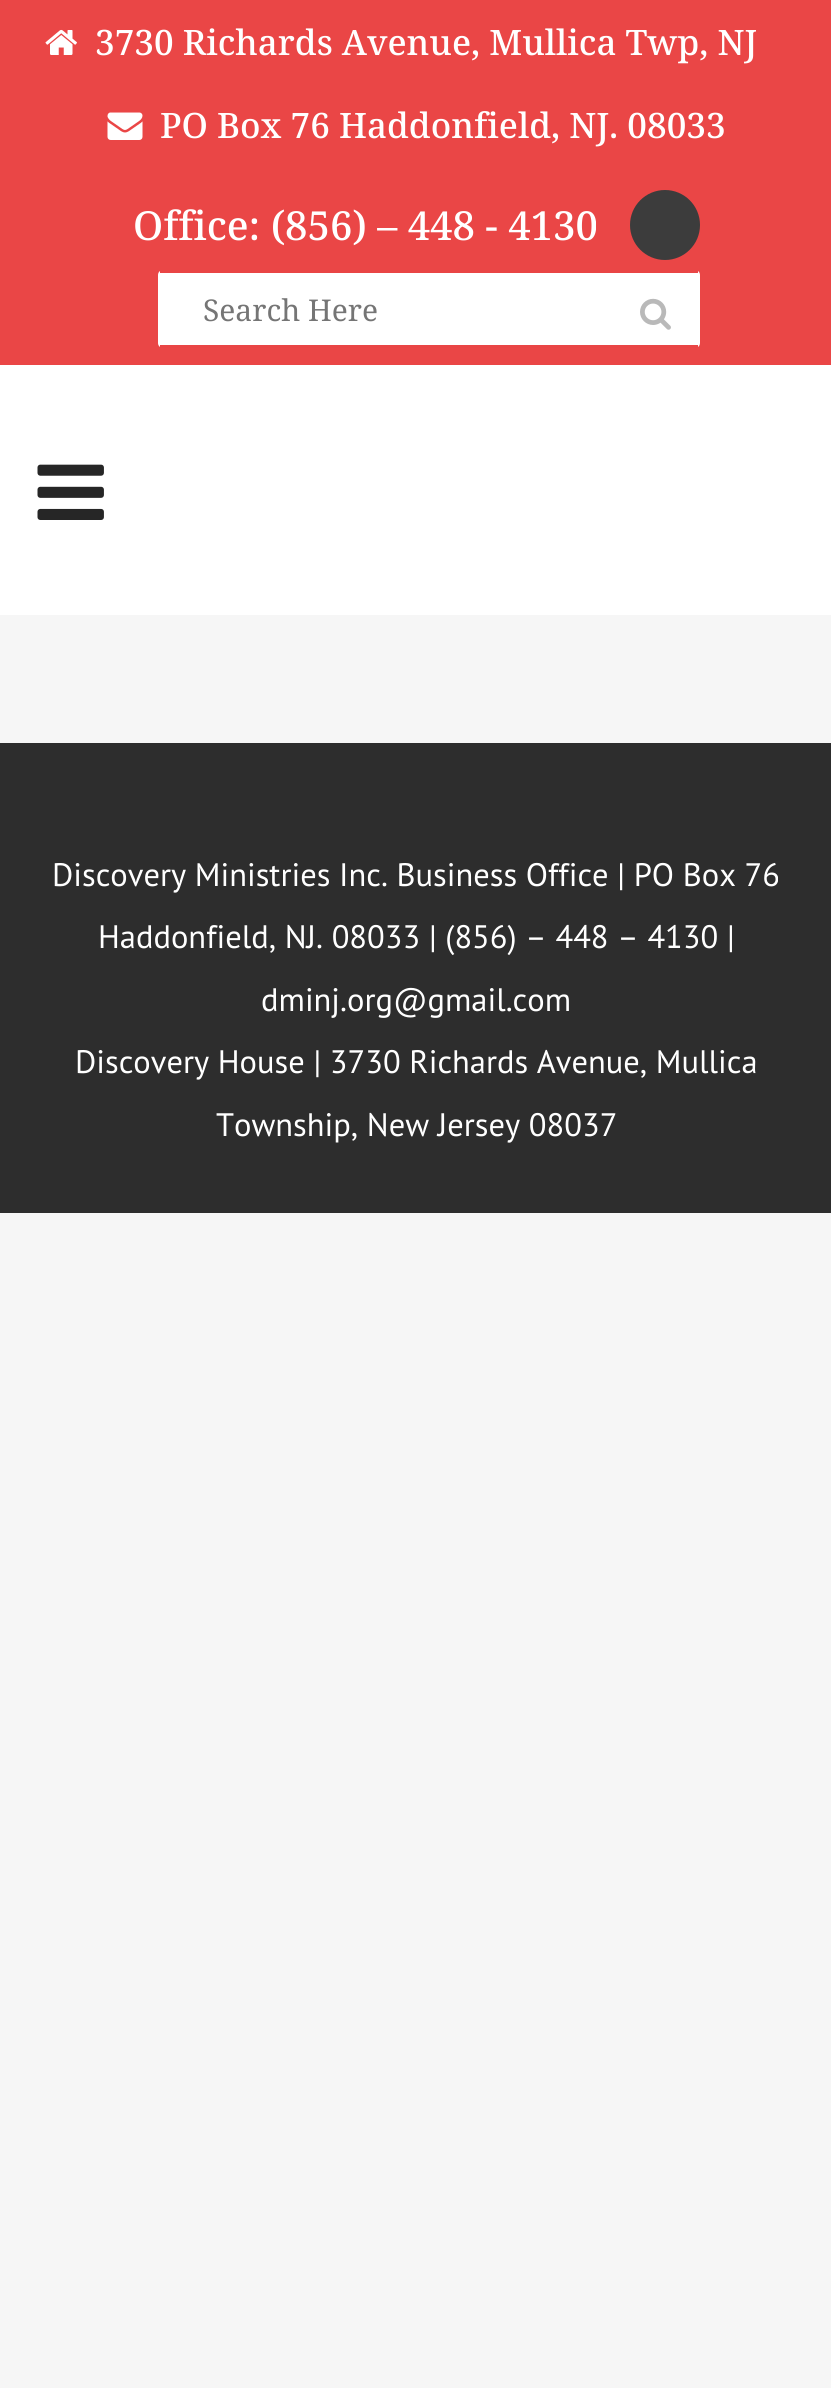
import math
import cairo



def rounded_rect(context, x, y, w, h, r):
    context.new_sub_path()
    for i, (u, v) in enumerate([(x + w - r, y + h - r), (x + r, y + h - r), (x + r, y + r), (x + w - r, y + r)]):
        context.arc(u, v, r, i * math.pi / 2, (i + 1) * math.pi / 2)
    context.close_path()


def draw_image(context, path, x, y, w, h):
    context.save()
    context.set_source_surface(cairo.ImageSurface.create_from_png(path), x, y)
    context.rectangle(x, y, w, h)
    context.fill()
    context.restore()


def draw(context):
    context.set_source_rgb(246 / 255, 246 / 255, 246 / 255)
    context.paint()
    context.set_source_rgb(234 / 255, 70 / 255, 70 / 255)
    context.rectangle(0, 0, 831, 365)
    context.fill()
    draw_image(context, "images/1.png", 45, 29, 32, 26)
    draw_image(context, "images/2.png", 107, 112, 36, 28)
    context.set_source_rgb(60 / 255, 60 / 255, 60 / 255)
    context.arc(665, 225, 35, 0, 2 * math.pi)
    context.fill()
    context.set_source_rgb(1, 1, 1)
    rounded_rect(context, 158, 270, 542, 78, 5)
    context.fill()
    context.set_source_rgb(233 / 255, 69 / 255, 69 / 255)
    context.rectangle(160, 270, 538, 3)
    context.fill()
    context.rectangle(160, 345, 538, 3)
    context.fill()
    draw_image(context, "images/3.png", 640, 298, 31, 32)
    context.set_source_rgb(1, 1, 1)
    context.rectangle(0, 365, 831, 250)
    context.fill()
    draw_image(context, "images/4.png", 37, 464, 67, 56)
    context.set_source_rgb(45 / 255, 45 / 255, 45 / 255)
    context.rectangle(0, 743, 831, 470)
    context.fill()
    context.select_font_face("Noto Serif Medium")
    context.set_font_size(35)
    context.set_source_rgb(1, 1, 1)
    context.move_to(95, 55)
    context.show_text("3730 Richards Avenue, Mullica Twp, NJ")
    context.move_to(160, 138)
    context.show_text("PO Box 76 Haddonfield, NJ. 08033")
    context.set_font_size(40)
    context.move_to(133, 240)
    context.show_text("Office: (856) – 448 - 4130")
    context.select_font_face("Noto Serif")
    context.set_font_size(30)
    context.set_source_rgb(117 / 255, 117 / 255, 117 / 255)
    context.move_to(203, 321)
    context.show_text("Search Here")
    context.select_font_face("PT Sans")
    context.set_font_size(32.5)
    context.set_source_rgb(1, 1, 1)
    context.move_to(52, 886)
    context.show_text("Discovery Ministries Inc. Business Office | PO Box 76")
    context.move_to(98, 948)
    context.show_text("Haddonfield, NJ. 08033 | (856) – 448 – 4130 |")
    context.move_to(261, 1011)
    context.show_text("dminj.org@gmail.com")
    context.move_to(75, 1073)
    context.show_text("Discovery House | 3730 Richards Avenue, Mullica")
    context.move_to(216, 1136)
    context.show_text("Township, New Jersey 08037")


surface = cairo.ImageSurface(cairo.Format.RGB24, 831, 2388)
context = cairo.Context(surface)
options = cairo.FontOptions()
options.set_hint_metrics(cairo.HintMetrics.OFF)
options.set_hint_style(cairo.HintStyle.NONE)
context.set_font_options(options)
context.set_miter_limit(4)
draw(context)
surface.write_to_png("out.png")
